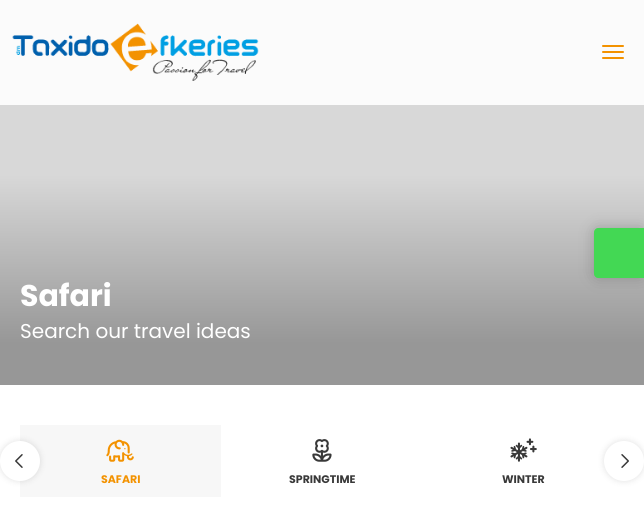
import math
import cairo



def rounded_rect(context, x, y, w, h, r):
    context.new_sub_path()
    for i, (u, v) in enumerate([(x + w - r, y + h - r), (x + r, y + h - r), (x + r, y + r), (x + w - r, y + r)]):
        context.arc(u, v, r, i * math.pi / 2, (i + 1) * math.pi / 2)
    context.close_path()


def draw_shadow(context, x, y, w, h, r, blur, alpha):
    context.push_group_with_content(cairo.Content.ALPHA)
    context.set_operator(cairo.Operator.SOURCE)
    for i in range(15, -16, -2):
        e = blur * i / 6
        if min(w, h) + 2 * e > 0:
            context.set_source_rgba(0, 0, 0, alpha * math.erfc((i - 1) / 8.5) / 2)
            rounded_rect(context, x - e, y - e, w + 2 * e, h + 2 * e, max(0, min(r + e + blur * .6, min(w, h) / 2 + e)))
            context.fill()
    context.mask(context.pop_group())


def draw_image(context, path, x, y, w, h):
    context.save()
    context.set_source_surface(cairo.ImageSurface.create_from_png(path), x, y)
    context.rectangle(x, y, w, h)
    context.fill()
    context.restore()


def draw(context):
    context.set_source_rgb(1, 1, 1)
    context.paint()
    context.set_source_rgb(251 / 255, 251 / 255, 251 / 255)
    context.rectangle(0, 0, 644, 105)
    context.fill()
    draw_image(context, "images/1.png", 12, 23, 247, 58)
    context.set_source_rgb(243 / 255, 146 / 255, 0)
    rounded_rect(context, 602, 45, 22, 2, 1)
    context.fill()
    rounded_rect(context, 602, 51, 22, 2, 1)
    context.fill()
    rounded_rect(context, 602, 57, 22, 2, 1)
    context.fill()
    gradient = cairo.LinearGradient(322, 105, 322, 385)
    gradient.add_color_stop_rgba(0.25, 216 / 255, 216 / 255, 216 / 255, 1)
    gradient.add_color_stop_rgba(0.85, 151 / 255, 151 / 255, 151 / 255, 1)
    context.set_source(gradient)
    context.rectangle(0, 105, 644, 280)
    context.fill()
    context.set_source_rgb(0, 0, 0)
    draw_shadow(context, 594, 228, 50, 50, 4, 7.5, 0.2)
    context.set_source_rgb(67 / 255, 216 / 255, 84 / 255)
    context.new_path()
    context.move_to(598, 228)
    context.line_to(644, 228)
    context.line_to(644, 278)
    context.line_to(598, 278)
    context.curve_to(596, 278, 594, 276, 594, 274)
    context.line_to(594, 232)
    context.curve_to(594, 230, 596, 228, 598, 228)
    context.close_path()
    context.fill()
    context.set_source_rgb(247 / 255, 247 / 255, 247 / 255)
    context.rectangle(20, 425, 201, 72)
    context.fill()
    context.set_source_rgb(0, 0, 0)
    draw_shadow(context, 0, 441, 40, 40, 20, 3.5, 0.12)
    context.set_source_rgb(1, 1, 1)
    context.arc(20, 461, 20, 0, 2 * math.pi)
    context.fill()
    draw_image(context, "images/2.png", 15, 454, 8, 14)
    draw_image(context, "images/3.png", 106, 439, 28, 23)
    draw_image(context, "images/4.png", 312, 439, 20, 23)
    draw_image(context, "images/5.png", 510, 438, 27, 24)
    context.set_source_rgb(0, 0, 0)
    draw_shadow(context, 604, 441, 40, 40, 20, 3.5, 0.12)
    context.set_source_rgb(1, 1, 1)
    context.arc(624, 461, 20, 0, 2 * math.pi)
    context.fill()
    draw_image(context, "images/6.png", 621, 454, 8, 14)
    context.select_font_face("Poppins", cairo.FontSlant.NORMAL, cairo.FontWeight.BOLD)
    context.set_font_size(30)
    context.move_to(20, 306)
    context.show_text("Safari")
    context.select_font_face("Poppins")
    context.set_font_size(20)
    context.move_to(20, 338)
    context.show_text("Search our travel ideas")
    context.select_font_face("Poppins", cairo.FontSlant.NORMAL, cairo.FontWeight.BOLD)
    context.set_font_size(11)
    context.set_source_rgb(243 / 255, 146 / 255, 0)
    context.move_to(101, 483)
    context.show_text("SAFARI")
    context.set_source_rgb(57 / 255, 57 / 255, 57 / 255)
    context.move_to(289, 483)
    context.show_text("SPRINGTIME")
    context.move_to(502, 483)
    context.show_text("WINTER")


surface = cairo.ImageSurface(cairo.Format.RGB24, 644, 505)
context = cairo.Context(surface)
options = cairo.FontOptions()
options.set_hint_metrics(cairo.HintMetrics.OFF)
options.set_hint_style(cairo.HintStyle.NONE)
context.set_font_options(options)
context.set_miter_limit(4)
draw(context)
surface.write_to_png("out.png")
